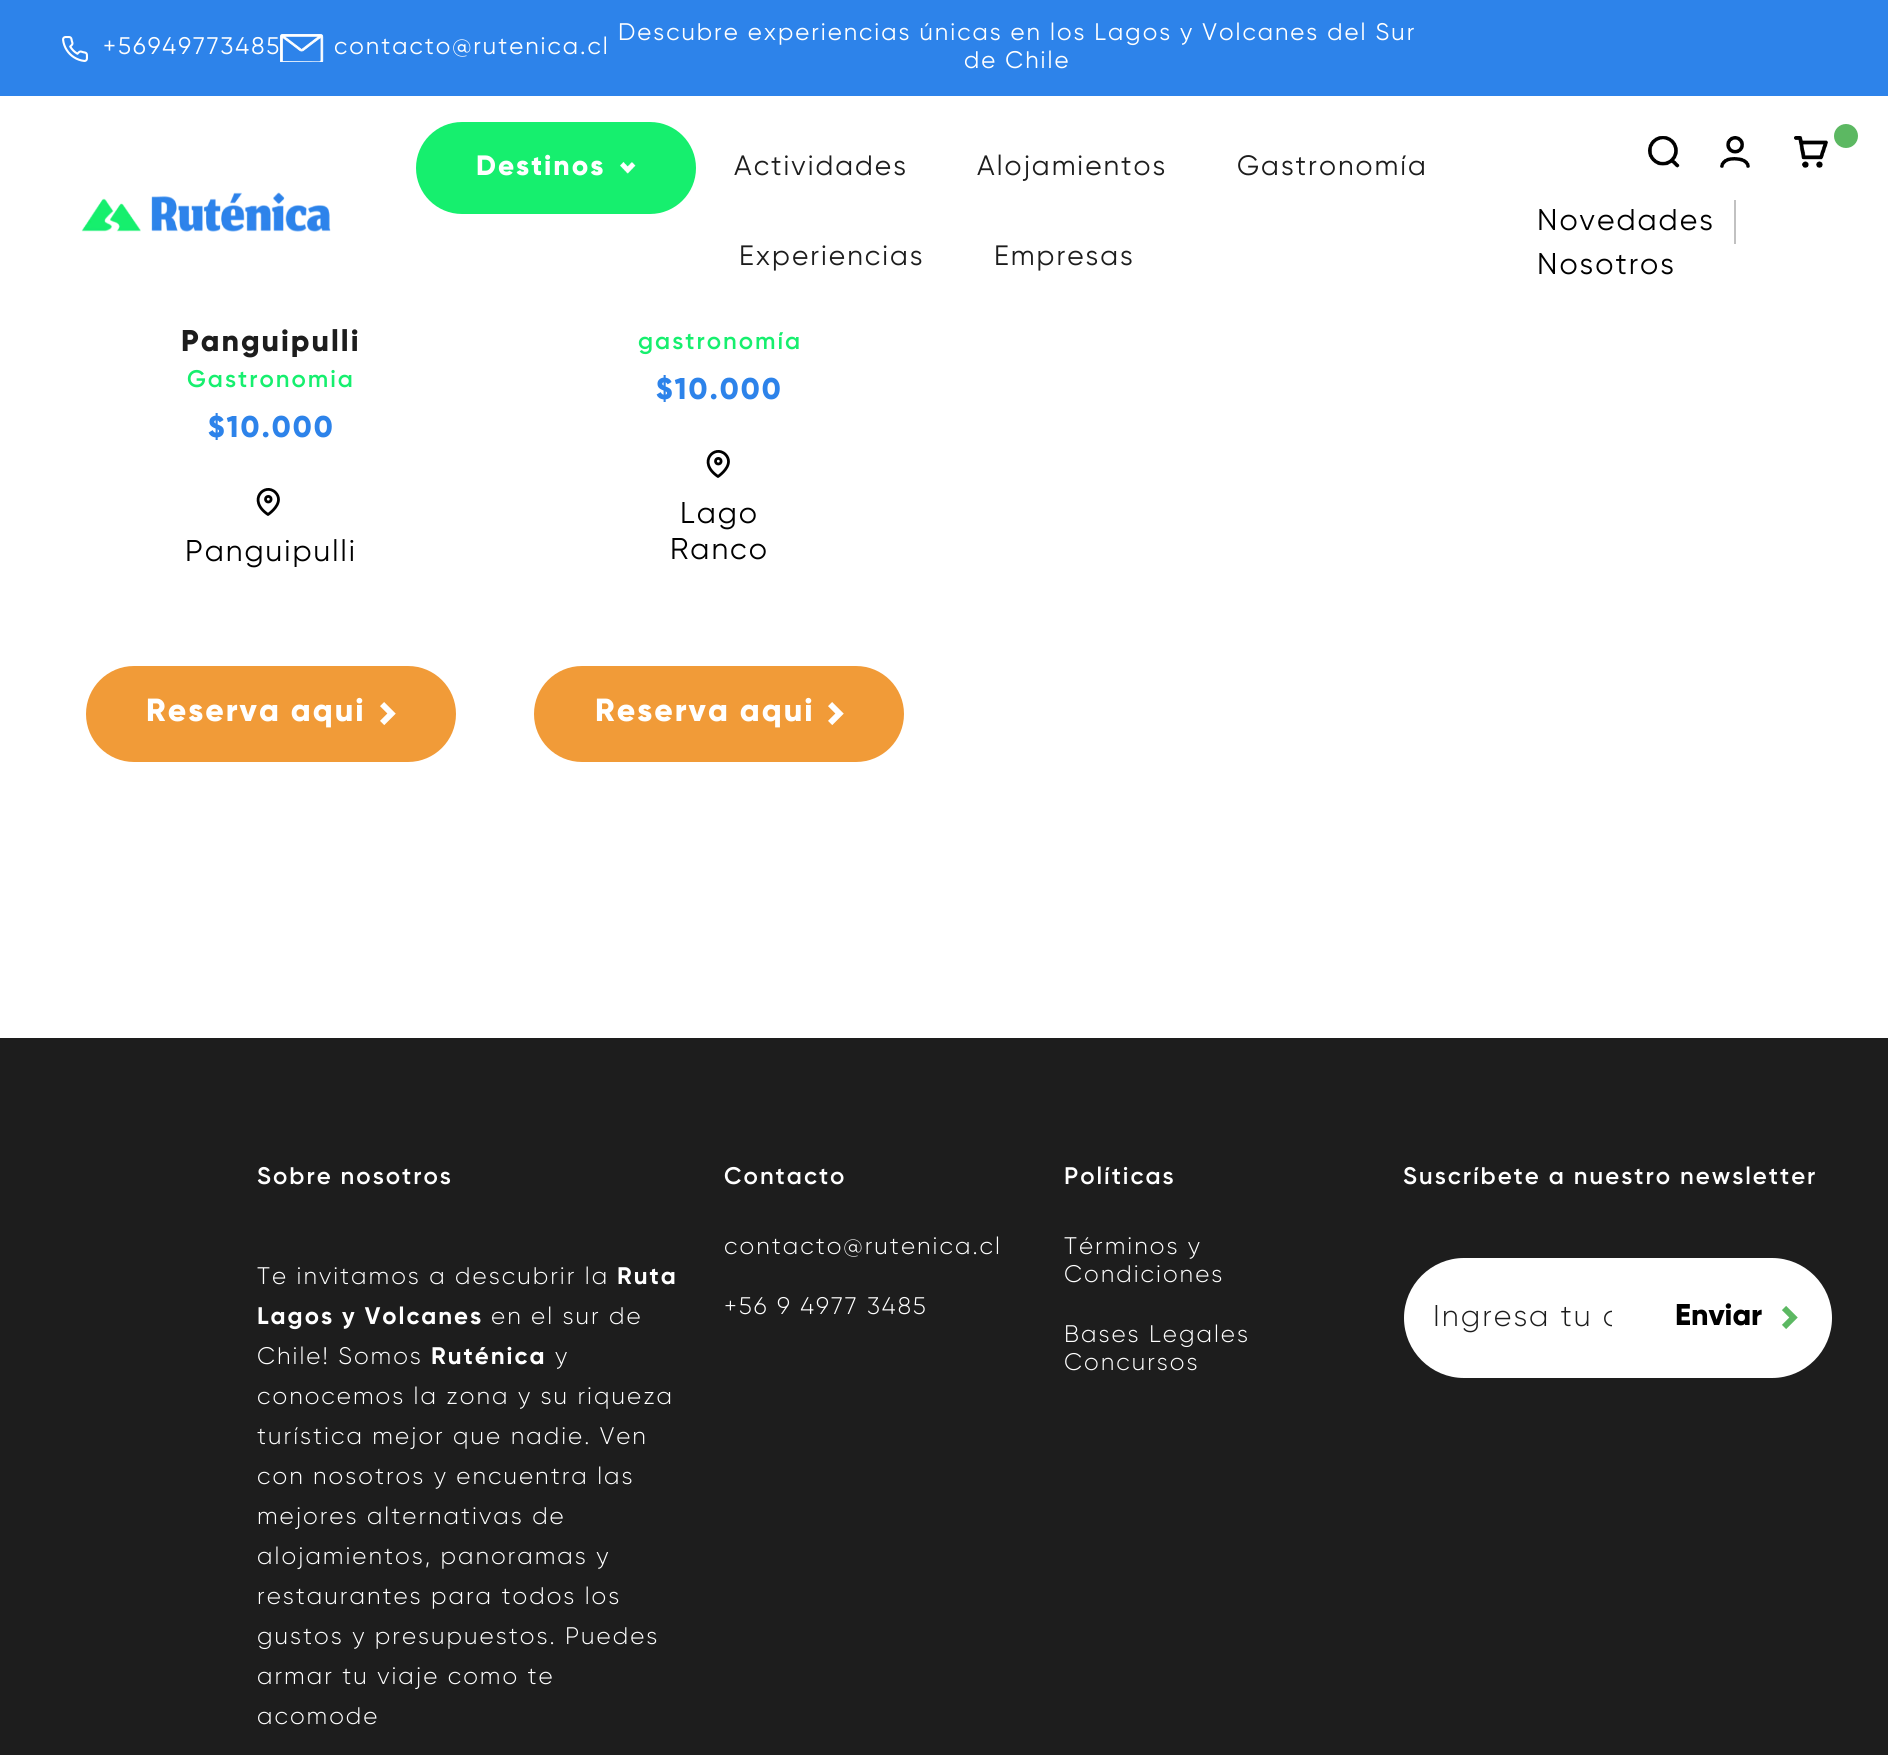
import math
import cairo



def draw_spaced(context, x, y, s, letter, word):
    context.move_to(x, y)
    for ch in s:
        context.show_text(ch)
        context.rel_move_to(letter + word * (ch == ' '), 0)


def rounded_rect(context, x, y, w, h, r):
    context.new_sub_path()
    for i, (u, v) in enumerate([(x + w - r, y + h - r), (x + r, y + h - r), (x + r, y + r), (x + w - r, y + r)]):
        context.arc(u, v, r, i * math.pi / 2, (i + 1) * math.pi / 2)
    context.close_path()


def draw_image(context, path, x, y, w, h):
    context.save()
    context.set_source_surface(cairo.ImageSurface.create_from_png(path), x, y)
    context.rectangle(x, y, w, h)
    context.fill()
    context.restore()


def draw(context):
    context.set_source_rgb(1, 1, 1)
    context.paint()
    context.set_source_rgb(45 / 255, 131 / 255, 234 / 255)
    context.rectangle(0, 0, 1888, 96)
    context.fill()
    draw_image(context, "images/1.png", 62, 36, 26, 26)
    draw_image(context, "images/2.png", 280, 34, 44, 28)
    draw_image(context, "images/3.png", 81, 192, 250, 40)
    context.set_source_rgb(22 / 255, 239 / 255, 110 / 255)
    rounded_rect(context, 416, 122, 280, 92, 46)
    context.fill()
    draw_image(context, "images/4.png", 620, 162, 16, 12)
    draw_image(context, "images/5.png", 1648, 136, 32, 32)
    draw_image(context, "images/6.png", 1720, 136, 30, 32)
    draw_image(context, "images/7.png", 1794, 136, 34, 32)
    context.set_source_rgb(92 / 255, 184 / 255, 98 / 255)
    context.arc(1846, 136, 12, 0, 2 * math.pi)
    context.fill()
    context.set_source_rgb(193 / 255, 193 / 255, 193 / 255)
    context.rectangle(1734, 200, 2, 44)
    context.fill()
    context.new_path()
    context.move_to(278.5, 499.5)
    context.curve_to(278.5, 507.5, 268, 514.5, 268, 514.5)
    context.curve_to(246.5, 500, 265, 482, 275.5, 492.5)
    context.curve_to(277.5, 494.5, 278.5, 497, 278.5, 499.5)
    context.close_path()
    context.set_source_rgb(0, 0, 0)
    context.set_line_width(2.8)
    context.set_line_cap(cairo.LineCap.ROUND)
    context.set_line_join(cairo.LineJoin.ROUND)
    context.stroke()
    context.arc(268.3, 499.2, 2.8, 0, 2 * math.pi)
    context.set_line_cap(cairo.LineCap.BUTT)
    context.set_line_join(cairo.LineJoin.MITER)
    context.stroke()
    context.set_source_rgb(241 / 255, 155 / 255, 56 / 255)
    rounded_rect(context, 86, 666, 370, 96, 48)
    context.fill()
    draw_image(context, "images/8.png", 380, 702, 16, 23)
    context.new_path()
    context.move_to(728.5, 461.5)
    context.curve_to(728.5, 469.5, 718, 476.5, 718, 476.5)
    context.curve_to(696.5, 462, 715, 444, 725.5, 454.5)
    context.curve_to(727.5, 456.5, 728.5, 459, 728.5, 461.5)
    context.close_path()
    context.set_source_rgb(0, 0, 0)
    context.set_line_cap(cairo.LineCap.ROUND)
    context.set_line_join(cairo.LineJoin.ROUND)
    context.stroke()
    context.arc(718.3, 461.2, 2.8, 0, 2 * math.pi)
    context.set_line_cap(cairo.LineCap.BUTT)
    context.set_line_join(cairo.LineJoin.MITER)
    context.stroke()
    context.set_source_rgb(241 / 255, 155 / 255, 56 / 255)
    rounded_rect(context, 534, 666, 370, 96, 48)
    context.fill()
    draw_image(context, "images/8.png", 828, 702, 16, 23)
    context.set_source_rgb(29 / 255, 29 / 255, 29 / 255)
    context.rectangle(0, 1038, 1888, 717)
    context.fill()
    context.set_source_rgb(1, 1, 1)
    context.new_path()
    context.move_to(1464, 1258)
    context.line_to(1642, 1258)
    context.line_to(1642, 1378)
    context.line_to(1464, 1378)
    context.curve_to(1431, 1378, 1404, 1351, 1404, 1318)
    context.curve_to(1404, 1285, 1431, 1258, 1464, 1258)
    context.close_path()
    context.fill()
    context.new_path()
    context.move_to(1642, 1258)
    context.line_to(1772, 1258)
    context.curve_to(1805, 1258, 1832, 1285, 1832, 1318)
    context.curve_to(1832, 1351, 1805, 1378, 1772, 1378)
    context.line_to(1642, 1378)
    context.close_path()
    context.fill()
    context.new_path()
    context.move_to(1784, 1308)
    context.line_to(1793.5, 1317.5)
    context.line_to(1784, 1327)
    context.set_source_rgb(92 / 255, 184 / 255, 98 / 255)
    context.set_line_width(6)
    context.stroke()
    context.select_font_face("Gilroy")
    context.set_font_size(24)
    context.set_source_rgb(1, 1, 1)
    draw_spaced(context, 103, 54, "+56949773485", 2, 0)
    draw_spaced(context, 334, 54, "contacto@rutenica.cl", 2, 0)
    draw_spaced(context, 618, 40, "Descubre experiencias únicas en los Lagos y Volcanes del Sur", 2, 0)
    draw_spaced(context, 964, 68, "de Chile", 2, 0)
    context.select_font_face("Gilroy ExtraBold")
    context.set_font_size(28)
    draw_spaced(context, 476, 175, "Destinos", 2, 0)
    context.select_font_face("Gilroy")
    context.set_source_rgb(29 / 255, 29 / 255, 29 / 255)
    draw_spaced(context, 734, 175, "Actividades", 2, 0)
    draw_spaced(context, 977, 175, "Alojamientos", 2, 0)
    draw_spaced(context, 1237, 175, "Gastronomía", 2, 0)
    draw_spaced(context, 739, 265, "Experiencias", 2, 0)
    draw_spaced(context, 994, 265, "Empresas", 2, 0)
    context.set_font_size(30)
    context.set_source_rgb(0, 0, 0)
    draw_spaced(context, 1537, 230, "Novedades", 2, 0)
    draw_spaced(context, 1537, 274, "Nosotros", 2, 0)
    context.select_font_face("Gilroy ExtraBold")
    context.set_source_rgb(29 / 255, 29 / 255, 29 / 255)
    draw_spaced(context, 181, 351, "Panguipulli", 2, 0)
    context.select_font_face("Gilroy SemiBold")
    context.set_font_size(24)
    context.set_source_rgb(22 / 255, 239 / 255, 110 / 255)
    draw_spaced(context, 187, 387, "Gastronomia", 2, 0)
    context.select_font_face("Gilroy ExtraBold")
    context.set_font_size(30)
    context.set_source_rgb(45 / 255, 131 / 255, 234 / 255)
    draw_spaced(context, 208, 437, "$10.000", 2, 0)
    context.select_font_face("Gilroy")
    context.set_source_rgb(0, 0, 0)
    draw_spaced(context, 185, 561, "Panguipulli", 2, 0)
    context.select_font_face("Gilroy ExtraBold")
    context.set_font_size(32)
    context.set_source_rgb(1, 1, 1)
    draw_spaced(context, 146, 721, "Reserva aqui", 2, 0)
    context.select_font_face("Gilroy SemiBold")
    context.set_font_size(24)
    context.set_source_rgb(22 / 255, 239 / 255, 110 / 255)
    draw_spaced(context, 638, 349, "gastronomía", 2, 0)
    context.select_font_face("Gilroy ExtraBold")
    context.set_font_size(30)
    context.set_source_rgb(45 / 255, 131 / 255, 234 / 255)
    draw_spaced(context, 656, 399, "$10.000", 2, 0)
    context.select_font_face("Gilroy")
    context.set_source_rgb(0, 0, 0)
    draw_spaced(context, 680, 523, "Lago", 2, 0)
    draw_spaced(context, 670, 559, "Ranco", 2, 0)
    context.select_font_face("Gilroy ExtraBold")
    context.set_font_size(32)
    context.set_source_rgb(1, 1, 1)
    draw_spaced(context, 595, 721, "Reserva aqui", 2, 0)
    context.select_font_face("Gilroy SemiBold")
    context.set_font_size(24)
    draw_spaced(context, 257, 1184, "Sobre nosotros", 2, 0)
    context.select_font_face("Gilroy Light")
    draw_spaced(context, 257, 1284, "Te invitamos a descubrir la", 2, 0)
    context.select_font_face("Gilroy", cairo.FontSlant.NORMAL, cairo.FontWeight.BOLD)
    draw_spaced(context, 617, 1284, "Ruta", 2, 0)
    draw_spaced(context, 257, 1324, "Lagos y Volcanes", 2, 0)
    context.select_font_face("Gilroy Light")
    draw_spaced(context, 491, 1324, "en el sur de", 2, 0)
    draw_spaced(context, 257, 1364, "Chile! Somos", 2, 0)
    context.select_font_face("Gilroy", cairo.FontSlant.NORMAL, cairo.FontWeight.BOLD)
    draw_spaced(context, 431, 1364, "Ruténica", 2, 0)
    context.select_font_face("Gilroy Light")
    draw_spaced(context, 555, 1364, "y", 2, 0)
    draw_spaced(context, 257, 1404, "conocemos la zona y su riqueza", 2, 0)
    draw_spaced(context, 257, 1444, "turística mejor que nadie. Ven", 2, 0)
    draw_spaced(context, 257, 1484, "con nosotros y encuentra las", 2, 0)
    draw_spaced(context, 257, 1524, "mejores alternativas de", 2, 0)
    draw_spaced(context, 257, 1564, "alojamientos, panoramas y", 2, 0)
    draw_spaced(context, 257, 1604, "restaurantes para todos los", 2, 0)
    draw_spaced(context, 257, 1644, "gustos y presupuestos. Puedes", 2, 0)
    draw_spaced(context, 257, 1684, "armar tu viaje como te", 2, 0)
    draw_spaced(context, 257, 1724, "acomode", 2, 0)
    context.select_font_face("Gilroy SemiBold")
    draw_spaced(context, 724, 1184, "Contacto", 2, 0)
    context.select_font_face("Gilroy Light")
    draw_spaced(context, 724, 1254, "contacto@rutenica.cl", 2, 0)
    draw_spaced(context, 724, 1314, "+56 9 4977 3485", 2, 0)
    context.select_font_face("Gilroy SemiBold")
    draw_spaced(context, 1064, 1184, "Políticas", 2, 0)
    context.select_font_face("Gilroy Light")
    draw_spaced(context, 1064, 1254, "Términos y", 2, 0)
    draw_spaced(context, 1064, 1282, "Condiciones", 2, 0)
    draw_spaced(context, 1064, 1342, "Bases Legales", 2, 0)
    draw_spaced(context, 1064, 1370, "Concursos", 2, 0)
    context.select_font_face("Gilroy SemiBold")
    draw_spaced(context, 1403, 1184, "Suscríbete a nuestro newsletter", 2, 0)
    context.save()
    context.rectangle(1434, 1300, 178, 36)
    context.clip()
    context.select_font_face("Gilroy Light")
    context.set_font_size(30)
    context.set_source_rgb(29 / 255, 29 / 255, 29 / 255)
    draw_spaced(context, 1433, 1326, "Ingresa tu c", 2, 0)
    context.restore()
    context.select_font_face("Gilroy ExtraBold")
    context.set_font_size(30)
    context.set_source_rgb(0, 0, 0)
    context.move_to(1675, 1325)
    context.show_text("Enviar")


surface = cairo.ImageSurface(cairo.Format.RGB24, 1888, 1755)
context = cairo.Context(surface)
options = cairo.FontOptions()
options.set_hint_metrics(cairo.HintMetrics.OFF)
options.set_hint_style(cairo.HintStyle.NONE)
context.set_font_options(options)
context.set_miter_limit(4)
draw(context)
surface.write_to_png("out.png")
